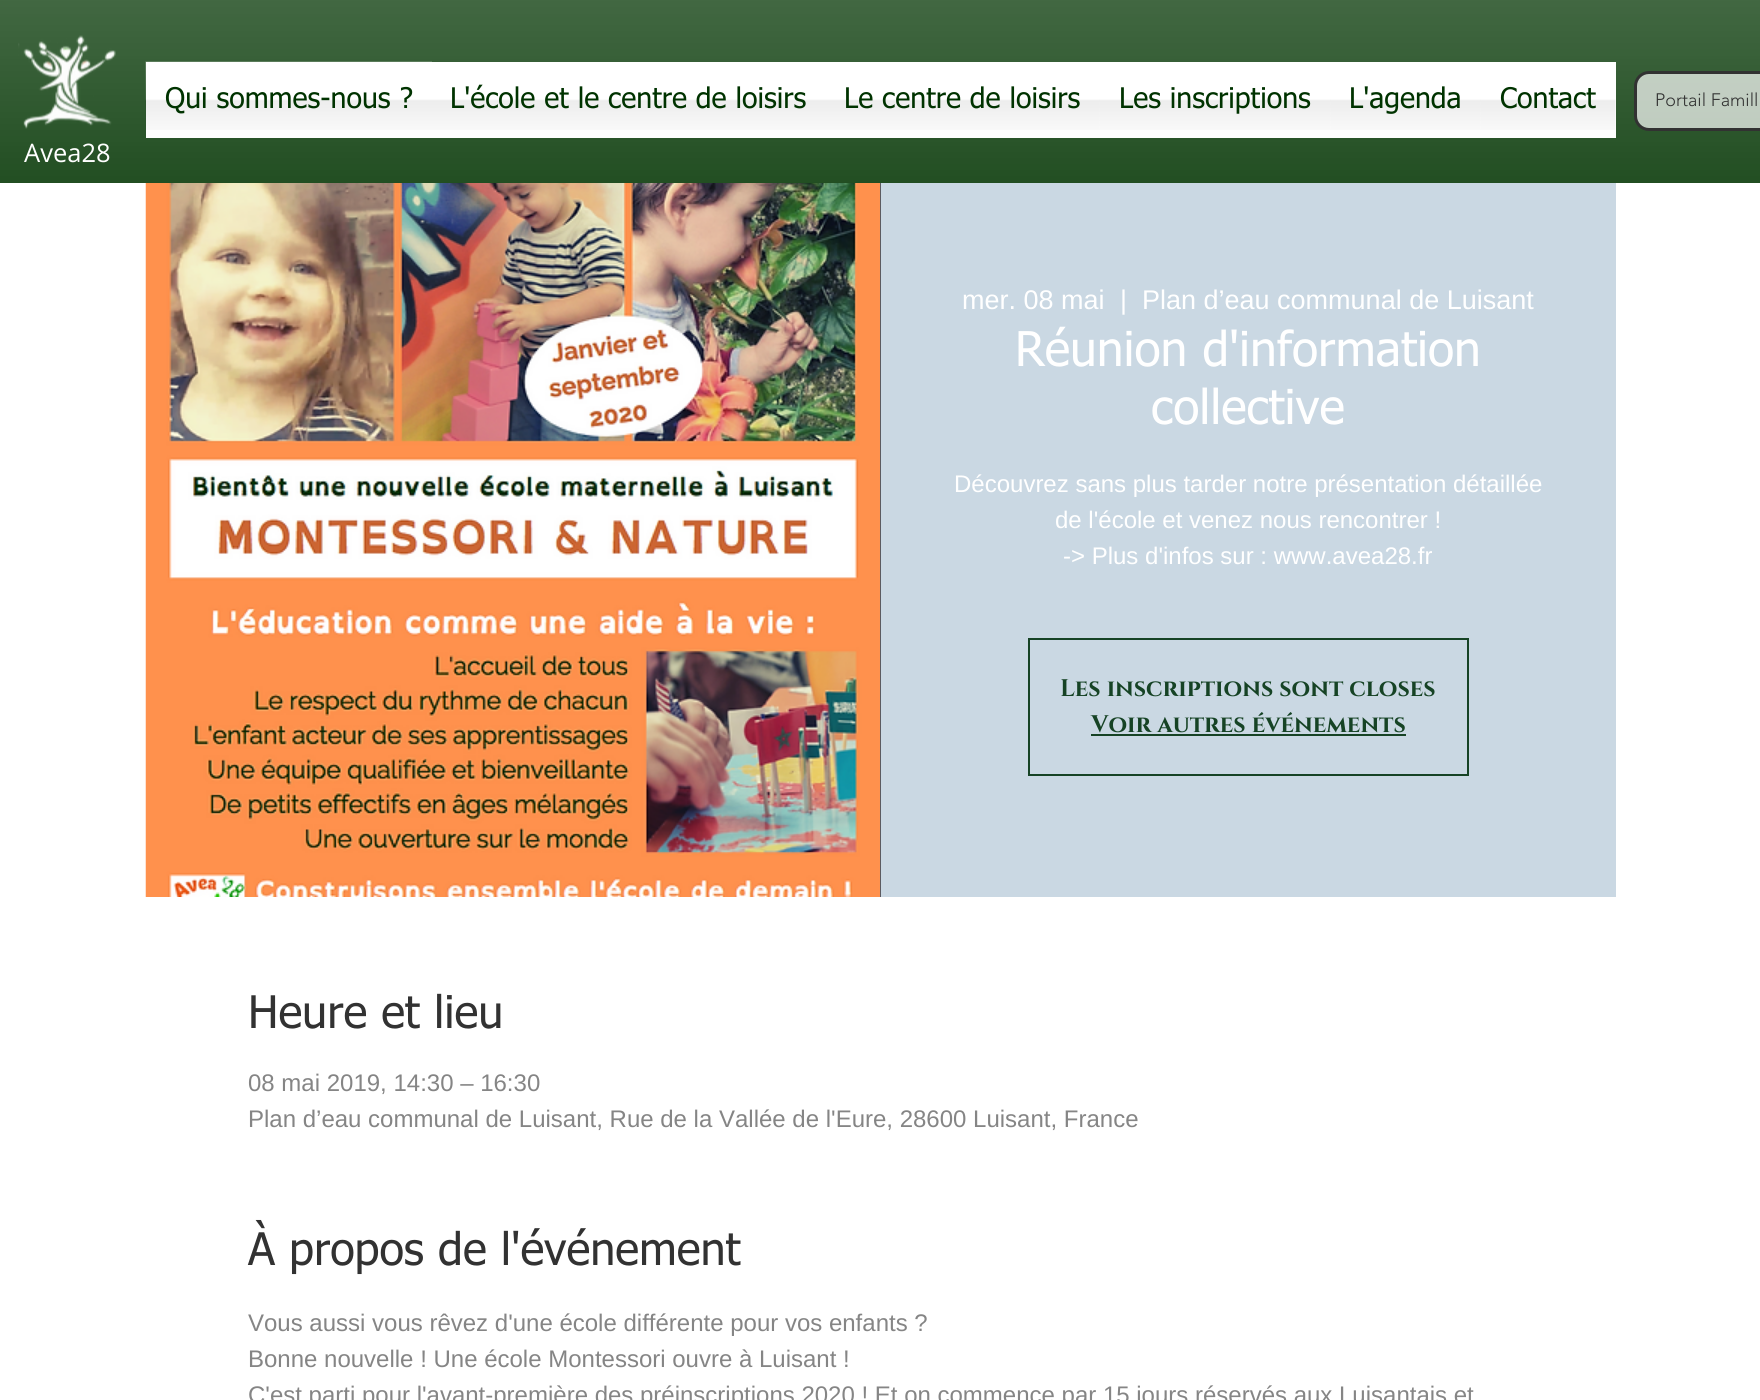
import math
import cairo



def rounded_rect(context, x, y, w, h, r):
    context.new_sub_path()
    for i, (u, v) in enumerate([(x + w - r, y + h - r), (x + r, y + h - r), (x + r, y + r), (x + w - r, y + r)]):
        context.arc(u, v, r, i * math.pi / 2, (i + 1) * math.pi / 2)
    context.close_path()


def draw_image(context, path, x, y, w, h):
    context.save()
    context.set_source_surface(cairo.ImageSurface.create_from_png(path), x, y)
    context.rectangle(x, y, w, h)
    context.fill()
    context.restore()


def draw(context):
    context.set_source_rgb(1, 1, 1)
    context.paint()
    context.set_source_rgb(0, 51 / 255, 0)
    context.rectangle(0, 0, 1760, 183)
    context.fill()
    draw_image(context, "images/1.png", 0, 0, 1760, 183)
    context.set_source_rgb(1, 1, 1)
    context.rectangle(146, 62, 1470, 76)
    context.fill()
    draw_image(context, "images/2.png", 145, 61, 287, 69)
    draw_image(context, "images/3.png", 432, 99, 393, 31)
    draw_image(context, "images/4.png", 825, 99, 275, 31)
    draw_image(context, "images/5.png", 1099, 99, 232, 31)
    draw_image(context, "images/6.png", 1330, 99, 151, 31)
    draw_image(context, "images/7.png", 1480, 99, 136, 31)
    context.set_source_rgba(1, 1, 1, 0.7)
    rounded_rect(context, 1635.5, 72.5, 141, 57, 13.5)
    context.fill_preserve()
    context.set_source_rgb(50 / 255, 50 / 255, 50 / 255)
    context.set_line_width(3)
    context.stroke()
    draw_image(context, "images/8.png", 18, 35, 98, 94)
    context.set_source_rgb(38 / 255, 74 / 255, 104 / 255)
    context.rectangle(880, 183, 1, 714)
    context.fill()
    draw_image(context, "images/9.png", 145, 183, 736, 714)
    context.set_source_rgb(202 / 255, 216 / 255, 227 / 255)
    context.rectangle(881, 183, 735, 714)
    context.fill()
    context.rectangle(1029, 639, 439, 136)
    context.set_source_rgb(22 / 255, 67 / 255, 37 / 255)
    context.set_line_width(2)
    context.stroke()
    context.rectangle(1091, 734, 315, 2)
    context.fill()
    context.select_font_face("tahoma")
    context.set_font_size(28.5)
    context.set_source_rgb(0, 51 / 255, 0)
    context.move_to(165, 108)
    context.show_text("Qui sommes-nous ?")
    context.move_to(450, 108)
    context.show_text("L'école et le centre de loisirs")
    context.move_to(844, 108)
    context.show_text("Le centre de loisirs")
    context.move_to(1119, 108)
    context.show_text("Les inscriptions")
    context.move_to(1349, 108)
    context.show_text("L'agenda")
    context.move_to(1500, 108)
    context.show_text("Contact")
    context.select_font_face("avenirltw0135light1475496 Light")
    context.set_font_size(18)
    context.set_source_rgb(50 / 255, 50 / 255, 50 / 255)
    context.move_to(1655, 106)
    context.show_text("Portail Famill")
    context.select_font_face("Open Sans")
    context.set_font_size(25.5)
    context.set_source_rgb(1, 1, 1)
    context.move_to(24, 162)
    context.show_text("Avea28")
    context.select_font_face("Liberation Sans")
    context.set_font_size(27)
    context.move_to(962, 309)
    context.show_text("mer. 08 mai")
    context.move_to(1120, 309)
    context.show_text("|")
    context.move_to(1142, 309)
    context.show_text("Plan d’eau communal de Luisant")
    context.select_font_face("tahoma")
    context.set_font_size(48)
    context.move_to(1015, 366)
    context.show_text("Réunion d'information")
    context.move_to(1151, 424)
    context.show_text("collective")
    context.select_font_face("Liberation Sans")
    context.set_font_size(24)
    context.move_to(954, 492)
    context.show_text("Découvrez sans plus tarder notre présentation détaillée")
    context.move_to(1055, 528)
    context.show_text("de l'école et venez nous rencontrer !")
    context.move_to(1063, 564)
    context.show_text("-> Plus d'infos sur : www.avea28.fr")
    context.select_font_face("Cinzel", cairo.FontSlant.NORMAL, cairo.FontWeight.BOLD)
    context.set_source_rgb(22 / 255, 67 / 255, 37 / 255)
    context.move_to(1060, 696)
    context.show_text("Les inscriptions sont closes")
    context.move_to(1091, 732)
    context.show_text("Voir autres événements")
    context.select_font_face("tahoma")
    context.set_font_size(45)
    context.set_source_rgb(50 / 255, 50 / 255, 50 / 255)
    context.move_to(248, 1028)
    context.show_text("Heure et lieu")
    context.select_font_face("Liberation Sans")
    context.set_font_size(24)
    context.set_source_rgb(133 / 255, 133 / 255, 133 / 255)
    context.move_to(248, 1091)
    context.show_text("08 mai 2019, 14:30 – 16:30")
    context.move_to(248, 1127)
    context.show_text("Plan d’eau communal de Luisant, Rue de la Vallée de l'Eure, 28600 Luisant, France")
    context.select_font_face("tahoma")
    context.set_font_size(45)
    context.set_source_rgb(50 / 255, 50 / 255, 50 / 255)
    context.move_to(248, 1265)
    context.show_text("À propos de l'événement")
    context.select_font_face("Liberation Sans")
    context.set_font_size(24)
    context.set_source_rgb(133 / 255, 133 / 255, 133 / 255)
    context.move_to(248, 1331)
    context.show_text("Vous aussi vous rêvez d'une école différente pour vos enfants ?")
    context.move_to(248, 1367)
    context.show_text("Bonne nouvelle ! Une école Montessori ouvre à Luisant !")
    context.move_to(248, 1403)
    context.show_text("C'est parti pour l'avant-première des préinscriptions 2020 ! Et on commence par 15 jours réservés aux Luisantais et")


surface = cairo.ImageSurface(cairo.Format.RGB24, 1760, 1400)
context = cairo.Context(surface)
options = cairo.FontOptions()
options.set_hint_metrics(cairo.HintMetrics.OFF)
options.set_hint_style(cairo.HintStyle.NONE)
context.set_font_options(options)
context.set_miter_limit(4)
draw(context)
surface.write_to_png("out.png")
